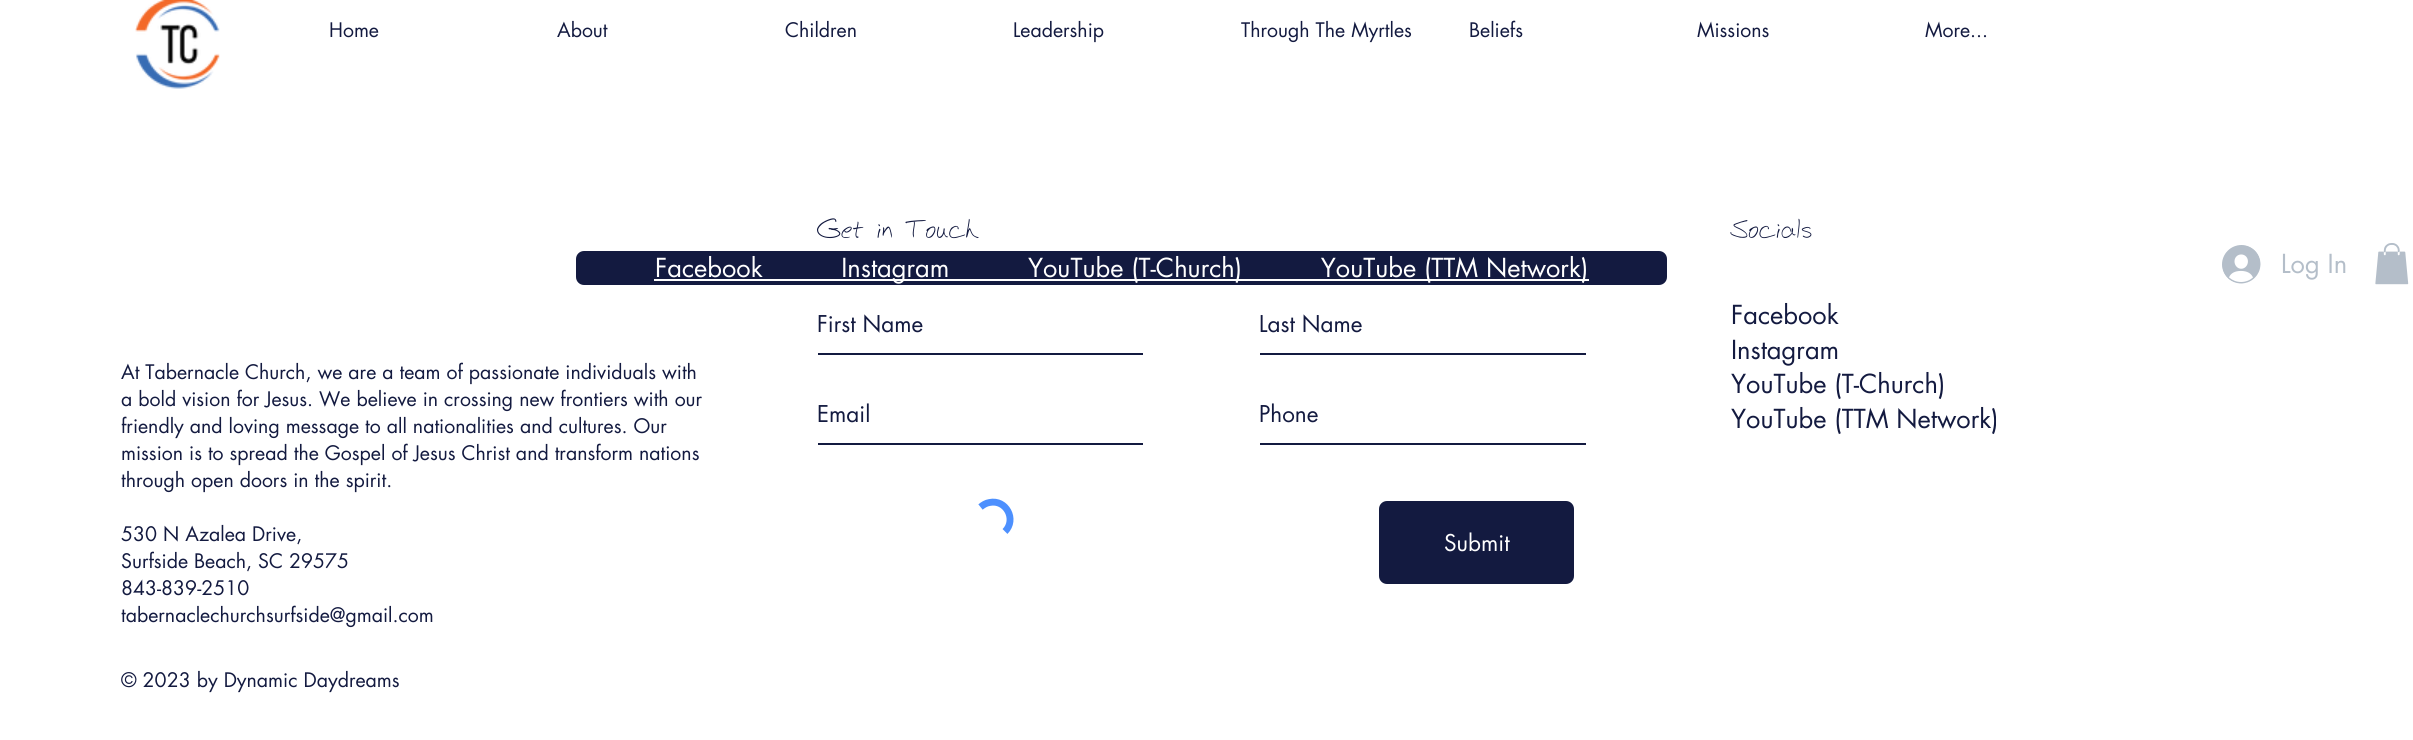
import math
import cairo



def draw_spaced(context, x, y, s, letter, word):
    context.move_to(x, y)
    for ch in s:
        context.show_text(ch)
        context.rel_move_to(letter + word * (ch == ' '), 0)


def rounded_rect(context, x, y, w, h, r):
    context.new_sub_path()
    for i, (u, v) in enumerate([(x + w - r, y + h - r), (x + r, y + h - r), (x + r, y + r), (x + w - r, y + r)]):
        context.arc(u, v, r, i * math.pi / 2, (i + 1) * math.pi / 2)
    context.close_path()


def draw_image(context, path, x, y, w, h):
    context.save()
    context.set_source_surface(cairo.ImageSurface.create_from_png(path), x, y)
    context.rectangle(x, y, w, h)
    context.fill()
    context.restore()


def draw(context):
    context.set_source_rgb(1, 1, 1)
    context.paint()
    draw_image(context, "images/1.png", 135, 0, 85, 89)
    context.set_source_rgb(19 / 255, 26 / 255, 64 / 255)
    rounded_rect(context, 576, 251, 1091, 34, 8)
    context.fill()
    context.set_source_rgb(1, 1, 1)
    context.rectangle(654, 279, 935, 2)
    context.fill()
    draw_image(context, "images/2.png", 2222, 245, 39, 39)
    draw_image(context, "images/3.png", 2375, 243, 34, 42)
    context.set_source_rgb(19 / 255, 26 / 255, 64 / 255)
    context.rectangle(818, 353, 325, 2)
    context.fill()
    context.rectangle(1260, 353, 326, 2)
    context.fill()
    context.rectangle(818, 443, 325, 2)
    context.fill()
    context.rectangle(1260, 443, 326, 2)
    context.fill()
    context.new_path()
    context.move_to(980.5, 507)
    context.curve_to(983, 505, 986, 503, 989.5, 502.5)
    context.curve_to(1006, 499, 1017, 519.5, 1005, 531.5)
    context.set_source_rgb(77 / 255, 144 / 255, 254 / 255)
    context.set_line_width(6.9)
    context.stroke()
    context.set_source_rgb(19 / 255, 26 / 255, 64 / 255)
    rounded_rect(context, 1379, 501, 195, 83, 8)
    context.fill()
    context.select_font_face("futura")
    context.set_font_size(19.5)
    context.move_to(329, 37)
    context.show_text("Home")
    context.move_to(557, 37)
    context.show_text("About")
    context.move_to(785, 37)
    context.show_text("Children")
    context.move_to(1013, 37)
    context.show_text("Leadership")
    context.move_to(1241, 37)
    context.show_text("Through The Myrtles")
    context.move_to(1469, 37)
    context.show_text("Beliefs")
    context.move_to(1697, 37)
    context.show_text("Missions")
    context.move_to(1925, 37)
    context.show_text("More...")
    context.set_font_size(25.5)
    context.set_source_rgb(1, 1, 1)
    context.move_to(655, 277)
    context.show_text("Facebook          Instagram          YouTube (T-Church)          YouTube (TTM Network)")
    context.set_source_rgb(180 / 255, 190 / 255, 201 / 255)
    context.move_to(2281, 273)
    context.show_text("Log In")
    context.select_font_face("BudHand")
    context.set_source_rgb(19 / 255, 26 / 255, 64 / 255)
    draw_spaced(context, 817, 238, "Get in Touch", 0.5, 0)
    draw_spaced(context, 1731, 238, "Socials", 0.5, 0)
    context.select_font_face("futura")
    context.move_to(1731, 324)
    context.show_text("Facebook")
    context.move_to(1731, 359)
    context.show_text("Instagram")
    context.move_to(1731, 393)
    context.show_text("YouTube (T-Church)")
    context.move_to(1731, 428)
    context.show_text("YouTube (TTM Network)")
    context.set_font_size(19.5)
    context.move_to(121, 379)
    context.show_text("At Tabernacle Church, we are a team of passionate individuals with")
    context.move_to(121, 406)
    context.show_text("a bold vision for Jesus. We believe in crossing new frontiers with our")
    context.move_to(121, 433)
    context.show_text("friendly and loving message to all nationalities and cultures. Our")
    context.move_to(121, 460)
    context.show_text("mission is to spread the Gospel of Jesus Christ and transform nations")
    context.move_to(121, 487)
    context.show_text("through open doors in the spirit.")
    context.move_to(121, 541)
    context.show_text("530 N Azalea Drive,")
    context.move_to(121, 568)
    context.show_text("Surfside Beach, SC 29575")
    context.move_to(121, 595)
    context.show_text("843-839-2510")
    context.move_to(121, 622)
    context.show_text("tabernaclechurchsurfside@gmail.com")
    context.set_font_size(22.5)
    context.move_to(817, 332)
    context.show_text("First Name")
    context.move_to(1259, 332)
    context.show_text("Last Name")
    context.move_to(817, 422)
    context.show_text("Email")
    context.move_to(1259, 422)
    context.show_text("Phone")
    context.set_source_rgb(1, 1, 1)
    context.move_to(1444, 551)
    context.show_text("Submit")
    context.set_font_size(19.5)
    context.set_source_rgb(19 / 255, 26 / 255, 64 / 255)
    context.move_to(121, 687)
    context.show_text("© 2023 by Dynamic Daydreams")


surface = cairo.ImageSurface(cairo.Format.RGB24, 2413, 740)
context = cairo.Context(surface)
options = cairo.FontOptions()
options.set_hint_metrics(cairo.HintMetrics.OFF)
options.set_hint_style(cairo.HintStyle.NONE)
context.set_font_options(options)
context.set_miter_limit(4)
draw(context)
surface.write_to_png("out.png")
